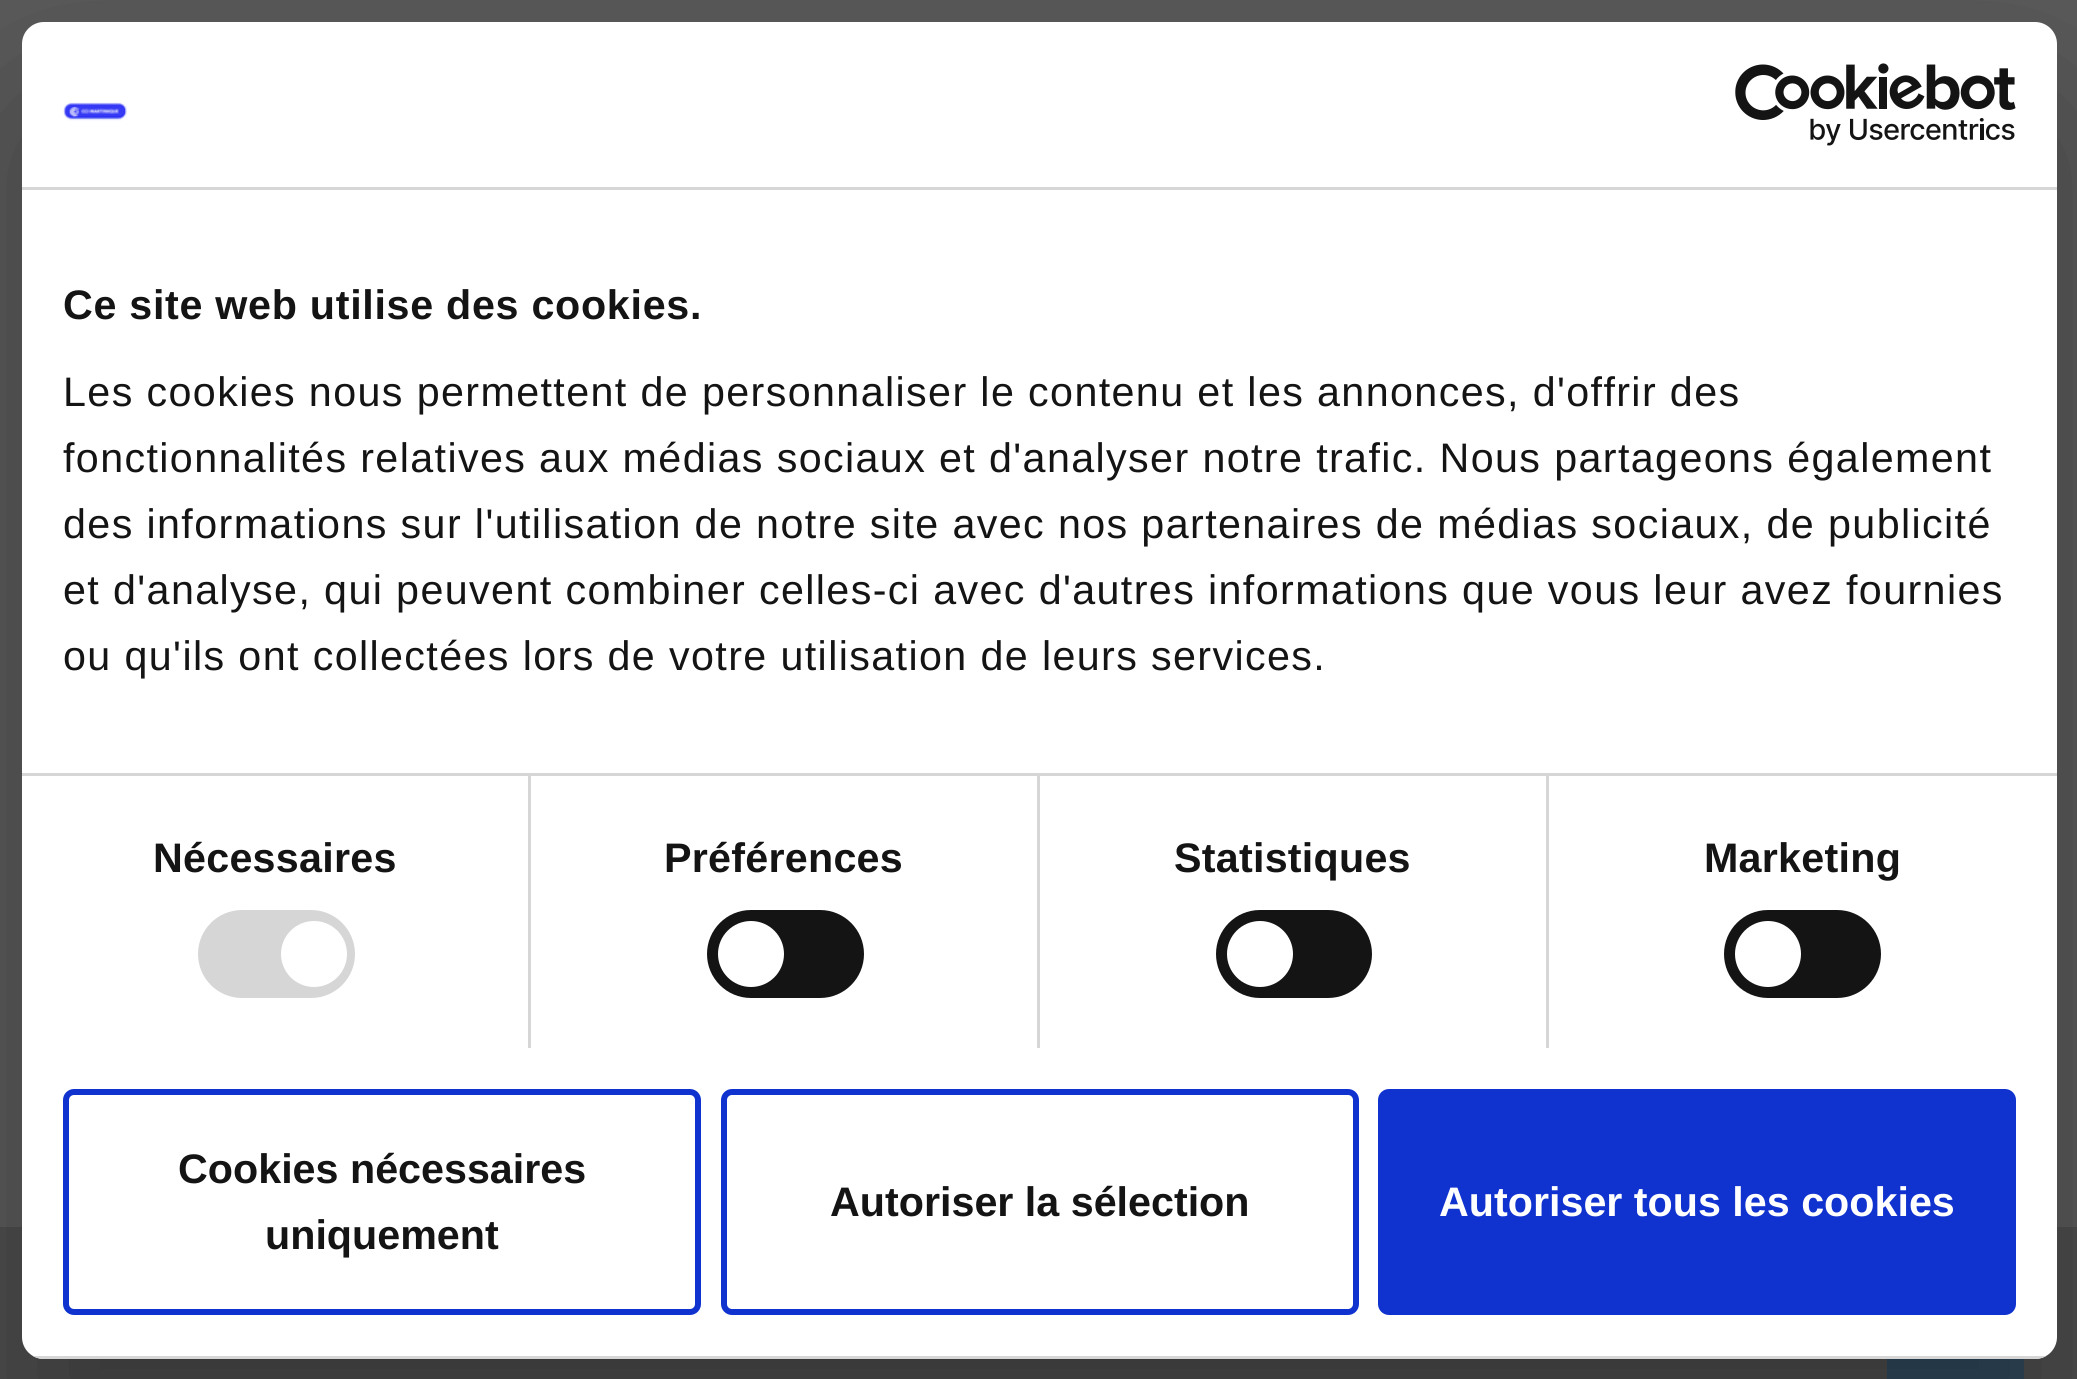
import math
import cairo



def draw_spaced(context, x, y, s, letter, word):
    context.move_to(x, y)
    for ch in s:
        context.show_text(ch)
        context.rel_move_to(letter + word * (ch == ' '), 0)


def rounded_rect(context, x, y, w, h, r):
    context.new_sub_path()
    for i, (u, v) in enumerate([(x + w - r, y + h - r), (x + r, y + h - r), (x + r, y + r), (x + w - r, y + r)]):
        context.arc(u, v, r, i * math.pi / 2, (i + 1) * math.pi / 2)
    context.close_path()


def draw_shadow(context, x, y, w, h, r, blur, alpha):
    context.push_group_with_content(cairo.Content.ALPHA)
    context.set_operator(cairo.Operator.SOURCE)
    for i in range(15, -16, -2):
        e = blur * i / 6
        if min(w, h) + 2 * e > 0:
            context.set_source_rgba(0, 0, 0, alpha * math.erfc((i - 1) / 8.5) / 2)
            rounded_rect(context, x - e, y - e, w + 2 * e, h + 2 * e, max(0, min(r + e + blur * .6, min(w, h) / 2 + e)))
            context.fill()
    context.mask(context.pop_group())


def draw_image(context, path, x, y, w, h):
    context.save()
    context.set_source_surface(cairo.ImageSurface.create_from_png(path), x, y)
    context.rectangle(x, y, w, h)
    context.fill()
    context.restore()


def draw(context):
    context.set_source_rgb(90 / 255, 90 / 255, 90 / 255)
    context.paint()
    context.set_source_rgb(77 / 255, 77 / 255, 77 / 255)
    context.rectangle(0, 1227, 2077, 152)
    context.fill()
    context.set_source_rgb(48 / 255, 73 / 255, 93 / 255)
    context.rectangle(1887, 1359, 137, 20)
    context.fill()
    context.set_source_rgb(0, 0, 0)
    draw_shadow(context, 22, 110, 2035, 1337, 22, 93.5, 0.3)
    context.set_source_rgb(1, 1, 1)
    rounded_rect(context, 22, 22, 2035, 1337, 22)
    context.fill()
    context.set_source_rgb(214 / 255, 214 / 255, 214 / 255)
    context.rectangle(22, 187, 2035, 3)
    context.fill()
    draw_image(context, "images/1.png", 63, 102, 64, 19)
    draw_image(context, "images/2.png", 1735, 63, 281, 83)
    context.rectangle(22, 773, 2035, 3)
    context.fill()
    context.rectangle(528, 776, 3, 272)
    context.fill()
    rounded_rect(context, 198, 910, 157, 88, 44)
    context.fill()
    context.set_source_rgb(1, 1, 1)
    context.arc(314, 954, 33, 0, 2 * math.pi)
    context.fill()
    context.set_source_rgb(214 / 255, 214 / 255, 214 / 255)
    context.rectangle(1037, 776, 3, 272)
    context.fill()
    context.set_source_rgb(20 / 255, 20 / 255, 20 / 255)
    rounded_rect(context, 707, 910, 157, 88, 44)
    context.fill()
    context.set_source_rgb(1, 1, 1)
    context.arc(751, 954, 33, 0, 2 * math.pi)
    context.fill()
    context.set_source_rgb(214 / 255, 214 / 255, 214 / 255)
    context.rectangle(1546, 776, 3, 272)
    context.fill()
    context.set_source_rgb(20 / 255, 20 / 255, 20 / 255)
    rounded_rect(context, 1216, 910, 156, 88, 44)
    context.fill()
    context.set_source_rgb(1, 1, 1)
    context.arc(1260, 954, 33, 0, 2 * math.pi)
    context.fill()
    context.set_source_rgb(20 / 255, 20 / 255, 20 / 255)
    rounded_rect(context, 1724, 910, 157, 88, 44)
    context.fill()
    context.set_source_rgb(1, 1, 1)
    context.arc(1768, 954, 33, 0, 2 * math.pi)
    context.fill()
    context.save()
    rounded_rect(context, 22, 22, 2035, 1337, 22)
    context.clip()
    context.set_source_rgb(214 / 255, 214 / 255, 214 / 255)
    context.rectangle(33, 1356, 2013, 3)
    context.fill()
    context.restore()
    rounded_rect(context, 66, 1092, 632, 220, 8)
    context.set_source_rgb(16 / 255, 50 / 255, 207 / 255)
    context.set_line_width(6)
    context.stroke()
    rounded_rect(context, 724, 1092, 632, 220, 8)
    context.stroke()
    rounded_rect(context, 1381, 1092, 632, 220, 8)
    context.fill_preserve()
    context.stroke()
    context.select_font_face("Liberation Sans", cairo.FontSlant.NORMAL, cairo.FontWeight.BOLD)
    context.set_font_size(41.25)
    context.set_source_rgb(20 / 255, 20 / 255, 20 / 255)
    draw_spaced(context, 63, 319, "Ce site web utilise des cookies.", 0.7, 0)
    context.select_font_face("Liberation Sans")
    draw_spaced(context, 63, 406, "Les cookies nous permettent de personnaliser le contenu et les annonces, d'offrir des", 1.38, 0)
    draw_spaced(context, 63, 472, "fonctionnalités relatives aux médias sociaux et d'analyser notre trafic. Nous partageons également", 1.38, 0)
    draw_spaced(context, 63, 538, "des informations sur l'utilisation de notre site avec nos partenaires de médias sociaux, de publicité", 1.38, 0)
    draw_spaced(context, 63, 604, "et d'analyse, qui peuvent combiner celles-ci avec d'autres informations que vous leur avez fournies", 1.38, 0)
    draw_spaced(context, 63, 670, "ou qu'ils ont collectées lors de votre utilisation de leurs services.", 1.38, 0)
    context.select_font_face("Liberation Sans", cairo.FontSlant.NORMAL, cairo.FontWeight.BOLD)
    draw_spaced(context, 153, 872, "Nécessaires", 0.25, 0)
    draw_spaced(context, 664, 872, "Préférences", 0.25, 0)
    draw_spaced(context, 1174, 872, "Statistiques", 0.25, 0)
    draw_spaced(context, 1704, 872, "Marketing", 0.25, 0)
    context.move_to(178, 1183)
    context.show_text("Cookies nécessaires")
    context.move_to(265, 1249)
    context.show_text("uniquement")
    context.move_to(830, 1216)
    context.show_text("Autoriser la sélection")
    context.set_source_rgb(1, 1, 1)
    context.move_to(1439, 1216)
    context.show_text("Autoriser tous les cookies")


surface = cairo.ImageSurface(cairo.Format.RGB24, 2077, 1379)
context = cairo.Context(surface)
options = cairo.FontOptions()
options.set_hint_metrics(cairo.HintMetrics.OFF)
options.set_hint_style(cairo.HintStyle.NONE)
context.set_font_options(options)
context.set_miter_limit(4)
draw(context)
surface.write_to_png("out.png")
